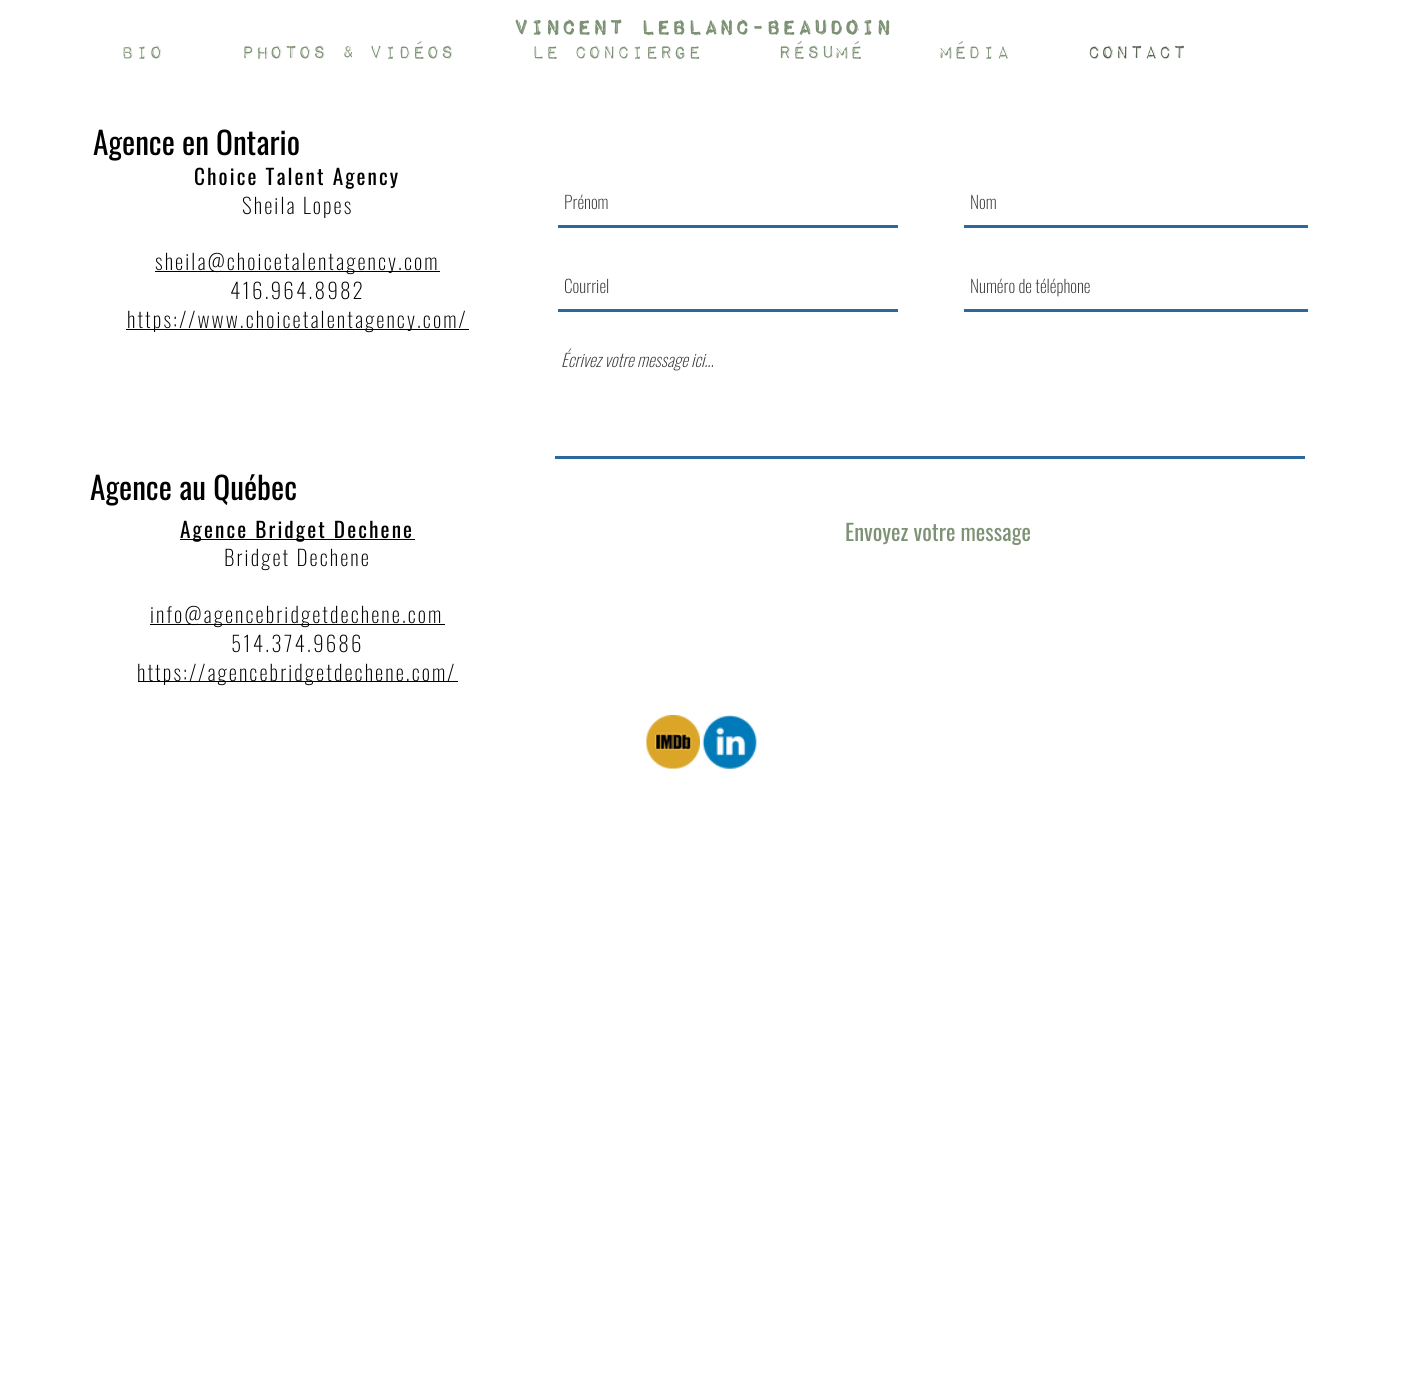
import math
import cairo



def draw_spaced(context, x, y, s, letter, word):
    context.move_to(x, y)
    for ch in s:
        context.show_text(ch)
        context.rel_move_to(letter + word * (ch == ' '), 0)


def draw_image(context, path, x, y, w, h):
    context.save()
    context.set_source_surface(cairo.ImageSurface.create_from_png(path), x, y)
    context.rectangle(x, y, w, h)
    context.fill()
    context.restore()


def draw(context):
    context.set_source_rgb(1, 1, 1)
    context.paint()
    context.set_source_rgb(0, 0, 0)
    context.rectangle(155, 271, 285, 1)
    context.fill()
    context.rectangle(126, 329, 343, 1)
    context.fill()
    context.set_source_rgb(43 / 255, 104 / 255, 156 / 255)
    context.rectangle(558, 225, 340, 3)
    context.fill()
    context.rectangle(964, 225, 344, 3)
    context.fill()
    context.rectangle(558, 309, 340, 3)
    context.fill()
    context.rectangle(964, 309, 344, 3)
    context.fill()
    context.rectangle(555, 456, 750, 3)
    context.fill()
    context.set_source_rgb(0, 0, 0)
    context.rectangle(180, 539, 235, 1)
    context.fill()
    context.rectangle(150, 624, 295, 1)
    context.fill()
    context.rectangle(138, 681, 320, 1)
    context.fill()
    draw_image(context, "images/1.png", 646, 715, 54, 54)
    draw_image(context, "images/2.png", 702, 715, 55, 54)
    context.select_font_face("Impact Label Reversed", cairo.FontSlant.NORMAL, cairo.FontWeight.BOLD)
    context.set_font_size(26.25)
    context.set_source_rgb(125 / 255, 145 / 255, 116 / 255)
    context.move_to(513, 35)
    context.show_text("Vincent Leblanc-Beaudoin")
    context.select_font_face("Impact Label Reversed")
    context.set_font_size(23.75)
    context.move_to(121, 59)
    context.show_text("Bio")
    context.move_to(241, 59)
    context.show_text("Photos & Vidéos")
    context.move_to(531, 59)
    context.show_text("Le Concierge")
    context.move_to(778, 59)
    context.show_text("Résumé")
    context.move_to(939, 59)
    context.show_text("Média")
    context.set_source_rgb(83 / 255, 97 / 255, 77 / 255)
    context.move_to(1087, 59)
    context.show_text("Contact")
    context.select_font_face("Oswald")
    context.set_font_size(31.25)
    context.set_source_rgb(0, 0, 0)
    context.move_to(93, 155)
    context.show_text("Agence en Ontario")
    context.set_font_size(21.25)
    draw_spaced(context, 194, 185, "Choice Talent Agency", 2.1, 0)
    context.select_font_face("Oswald ExtraLight")
    draw_spaced(context, 242, 214, "Sheila Lopes", 2.1, 0)
    draw_spaced(context, 155, 270, "sheila@choicetalentagency.com", 2.1, 0)
    draw_spaced(context, 230, 299, "416.964.8982", 2.1, 0)
    draw_spaced(context, 127, 328, "https://www.choicetalentagency.com/", 2.1, 0)
    context.set_font_size(17.5)
    context.set_source_rgb(48 / 255, 48 / 255, 48 / 255)
    context.move_to(564, 209)
    context.show_text("Prénom")
    context.move_to(970, 209)
    context.show_text("Nom")
    context.move_to(564, 293)
    context.show_text("Courriel")
    context.move_to(970, 293)
    context.show_text("Numéro de téléphone")
    context.select_font_face("Oswald ExtraLight", cairo.FontSlant.ITALIC)
    context.move_to(561, 367)
    context.show_text("Écrivez votre message ici...")
    context.select_font_face("Oswald")
    context.set_font_size(22.5)
    context.set_source_rgb(125 / 255, 145 / 255, 116 / 255)
    context.move_to(845, 541)
    context.show_text("Envoyez votre message")
    context.set_font_size(31.25)
    context.set_source_rgb(0, 0, 0)
    context.move_to(90, 500)
    context.show_text("Agence au Québec")
    context.set_font_size(21.25)
    draw_spaced(context, 180, 538, "Agence Bridget Dechene", 2.1, 0)
    context.select_font_face("Oswald ExtraLight")
    draw_spaced(context, 224, 566, "Bridget Dechene", 2.1, 0)
    draw_spaced(context, 150, 623, "info@agencebridgetdechene.com", 2.1, 0)
    draw_spaced(context, 231, 652, "514.374.9686", 2.1, 0)
    draw_spaced(context, 137, 681, "https://agencebridgetdechene.com/", 2.1, 0)


surface = cairo.ImageSurface(cairo.Format.RGB24, 1405, 1385)
context = cairo.Context(surface)
options = cairo.FontOptions()
options.set_hint_metrics(cairo.HintMetrics.OFF)
options.set_hint_style(cairo.HintStyle.NONE)
context.set_font_options(options)
context.set_miter_limit(4)
draw(context)
surface.write_to_png("out.png")
